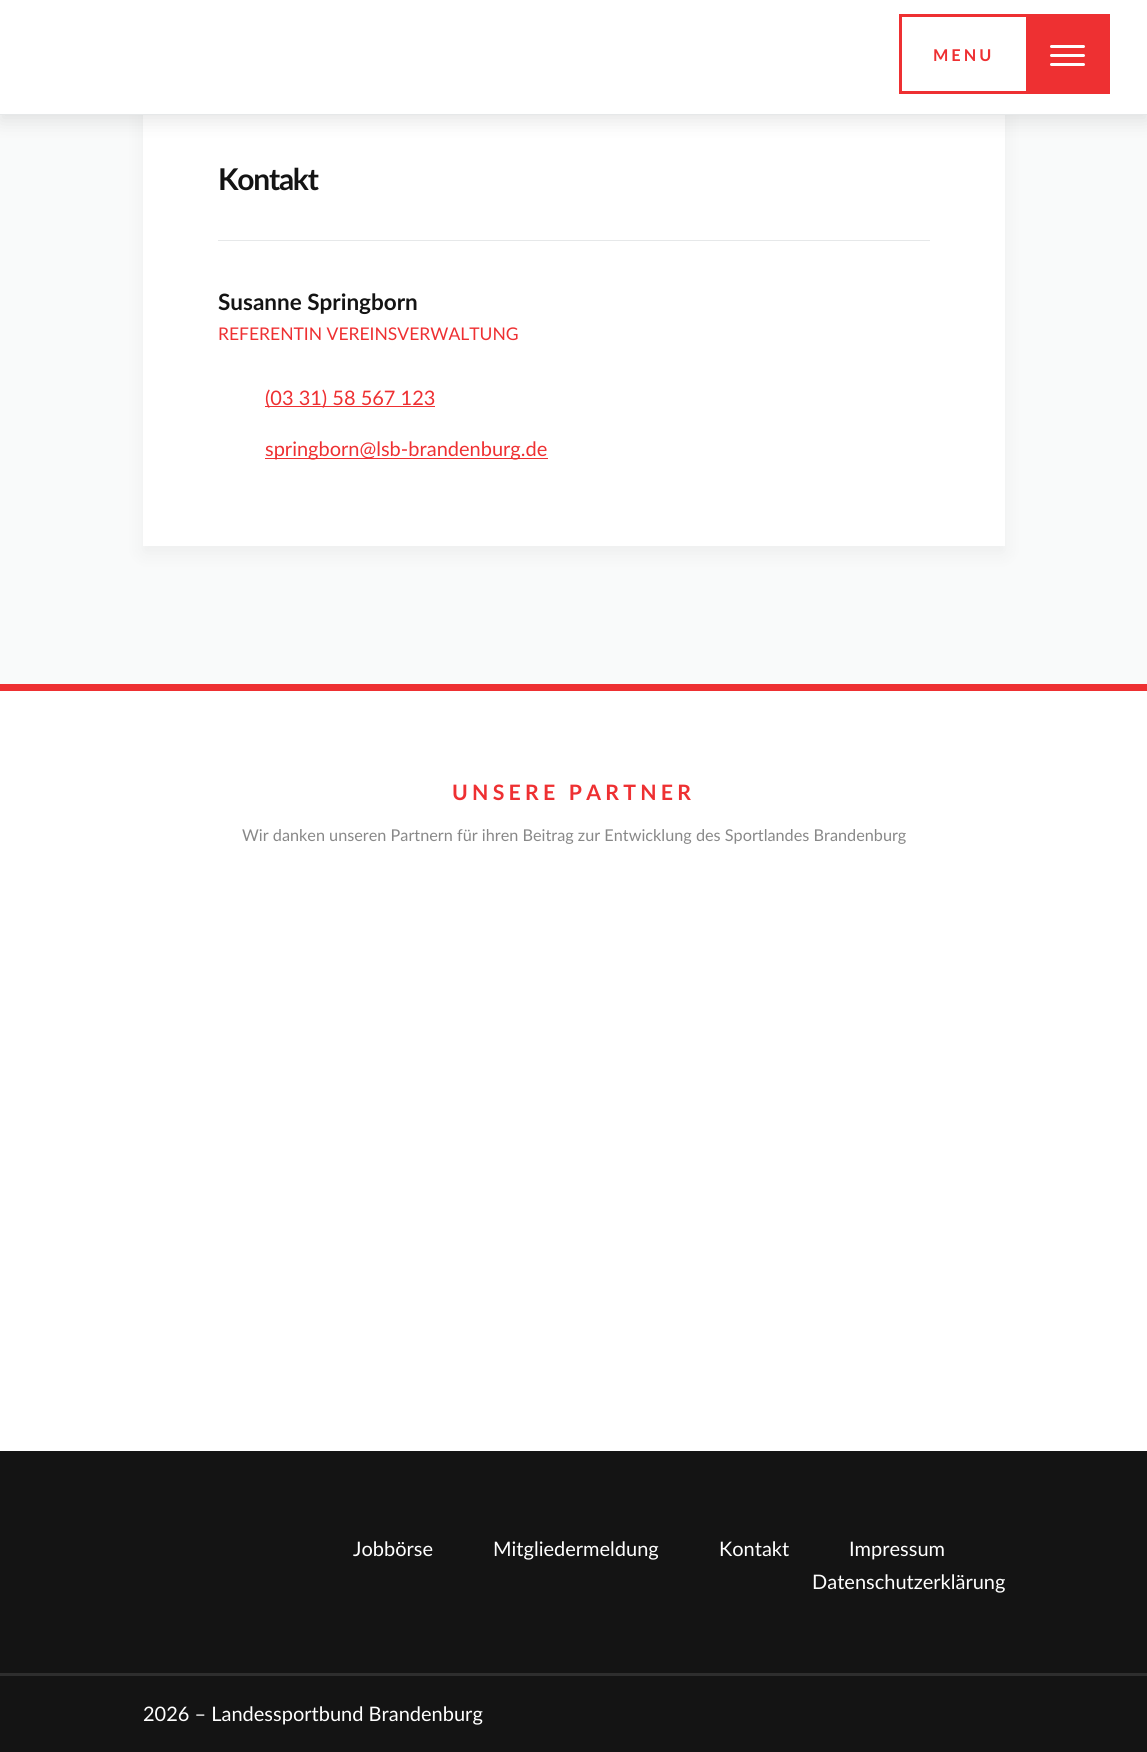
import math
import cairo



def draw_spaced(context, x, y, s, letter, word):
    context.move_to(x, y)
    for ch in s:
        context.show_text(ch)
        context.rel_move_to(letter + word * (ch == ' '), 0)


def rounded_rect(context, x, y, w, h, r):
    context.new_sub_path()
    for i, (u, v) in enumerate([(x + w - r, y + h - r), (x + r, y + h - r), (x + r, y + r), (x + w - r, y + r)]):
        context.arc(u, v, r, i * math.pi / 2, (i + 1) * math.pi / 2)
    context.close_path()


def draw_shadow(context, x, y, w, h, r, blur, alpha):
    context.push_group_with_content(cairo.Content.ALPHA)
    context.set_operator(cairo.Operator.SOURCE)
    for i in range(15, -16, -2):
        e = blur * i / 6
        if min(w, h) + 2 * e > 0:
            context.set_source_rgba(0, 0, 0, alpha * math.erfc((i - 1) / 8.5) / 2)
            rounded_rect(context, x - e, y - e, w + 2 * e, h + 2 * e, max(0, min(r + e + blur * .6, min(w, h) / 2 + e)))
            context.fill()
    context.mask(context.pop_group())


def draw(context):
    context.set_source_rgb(1, 1, 1)
    context.paint()
    context.set_source_rgb(249 / 255, 250 / 255, 250 / 255)
    context.rectangle(0, 115, 1147, 569)
    context.fill()
    context.set_source_rgb(0, 0, 0)
    draw_shadow(context, 143, 98, 862, 455, 0, 9.5, 0.05)
    context.set_source_rgb(1, 1, 1)
    context.rectangle(143, 115, 862, 431)
    context.fill()
    context.set_source_rgb(0, 0, 0)
    draw_shadow(context, 0, 6, 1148, 115, 0, 9.5, 0.1)
    context.set_source_rgb(1, 1, 1)
    context.rectangle(0, 0, 1147, 114)
    context.fill()
    context.set_source_rgb(230 / 255, 232 / 255, 233 / 255)
    context.rectangle(0, 114, 1147, 1)
    context.fill()
    context.rectangle(900.5, 15.5, 208, 77)
    context.set_source_rgb(238 / 255, 48 / 255, 50 / 255)
    context.set_line_width(3)
    context.stroke()
    context.rectangle(1026, 17, 81, 74)
    context.fill()
    context.set_source_rgb(1, 1, 1)
    rounded_rect(context, 1050, 54, 35, 3, 1.5)
    context.fill()
    rounded_rect(context, 1050, 45, 35, 3, 1.5)
    context.fill()
    rounded_rect(context, 1050, 63, 35, 3, 1.5)
    context.fill()
    context.set_source_rgb(230 / 255, 232 / 255, 233 / 255)
    context.rectangle(218, 240, 712, 1)
    context.fill()
    context.set_source_rgb(238 / 255, 48 / 255, 50 / 255)
    context.rectangle(265, 406, 170, 1)
    context.fill()
    context.rectangle(265, 458, 283, 1)
    context.fill()
    context.rectangle(0, 684, 1147, 7)
    context.fill()
    context.set_source_rgb(20 / 255, 20 / 255, 20 / 255)
    context.rectangle(0, 1451, 1147, 301)
    context.fill()
    context.set_source_rgb(46 / 255, 46 / 255, 46 / 255)
    context.rectangle(0, 1673, 1147, 3)
    context.fill()
    context.select_font_face("Lato", cairo.FontSlant.NORMAL, cairo.FontWeight.BOLD)
    context.set_font_size(16.25)
    context.set_source_rgb(238 / 255, 48 / 255, 50 / 255)
    draw_spaced(context, 933, 61, "MENU", 3, 0)
    context.set_font_size(30)
    context.set_source_rgb(20 / 255, 20 / 255, 20 / 255)
    draw_spaced(context, 218, 190, "Kontakt", -1.25, 0)
    context.set_font_size(22.5)
    context.move_to(218, 310)
    context.show_text("Susanne Springborn")
    context.select_font_face("Lato")
    context.set_font_size(17.5)
    context.set_source_rgb(238 / 255, 48 / 255, 50 / 255)
    context.move_to(218, 340)
    context.show_text("REFERENTIN VEREINSVERWALTUNG")
    context.set_font_size(20)
    context.move_to(265, 405)
    context.show_text("(03 31) 58 567 123")
    context.move_to(265, 456)
    context.show_text("springborn@lsb-brandenburg.de")
    context.select_font_face("Lato", cairo.FontSlant.NORMAL, cairo.FontWeight.BOLD)
    context.set_font_size(21.25)
    draw_spaced(context, 452, 800, "UNSERE PARTNER", 4.25, 0)
    context.select_font_face("Lato")
    context.set_font_size(16.25)
    context.set_source_rgb(136 / 255, 136 / 255, 136 / 255)
    context.move_to(242, 841)
    context.show_text("Wir danken unseren Partnern für ihren Beitrag zur Entwicklung des Sportlandes Brandenburg")
    context.set_font_size(20)
    context.set_source_rgb(1, 1, 1)
    context.move_to(353, 1556)
    context.show_text("Jobbörse")
    context.move_to(493, 1556)
    context.show_text("Mitgliedermeldung")
    context.move_to(719, 1556)
    context.show_text("Kontakt")
    context.move_to(849, 1556)
    context.show_text("Impressum")
    context.move_to(812, 1589)
    context.show_text("Datenschutzerklärung")
    context.move_to(143, 1721)
    context.show_text("2026 – Landessportbund Brandenburg")


surface = cairo.ImageSurface(cairo.Format.RGB24, 1147, 1752)
context = cairo.Context(surface)
options = cairo.FontOptions()
options.set_hint_metrics(cairo.HintMetrics.OFF)
options.set_hint_style(cairo.HintStyle.NONE)
context.set_font_options(options)
context.set_miter_limit(4)
draw(context)
surface.write_to_png("out.png")
